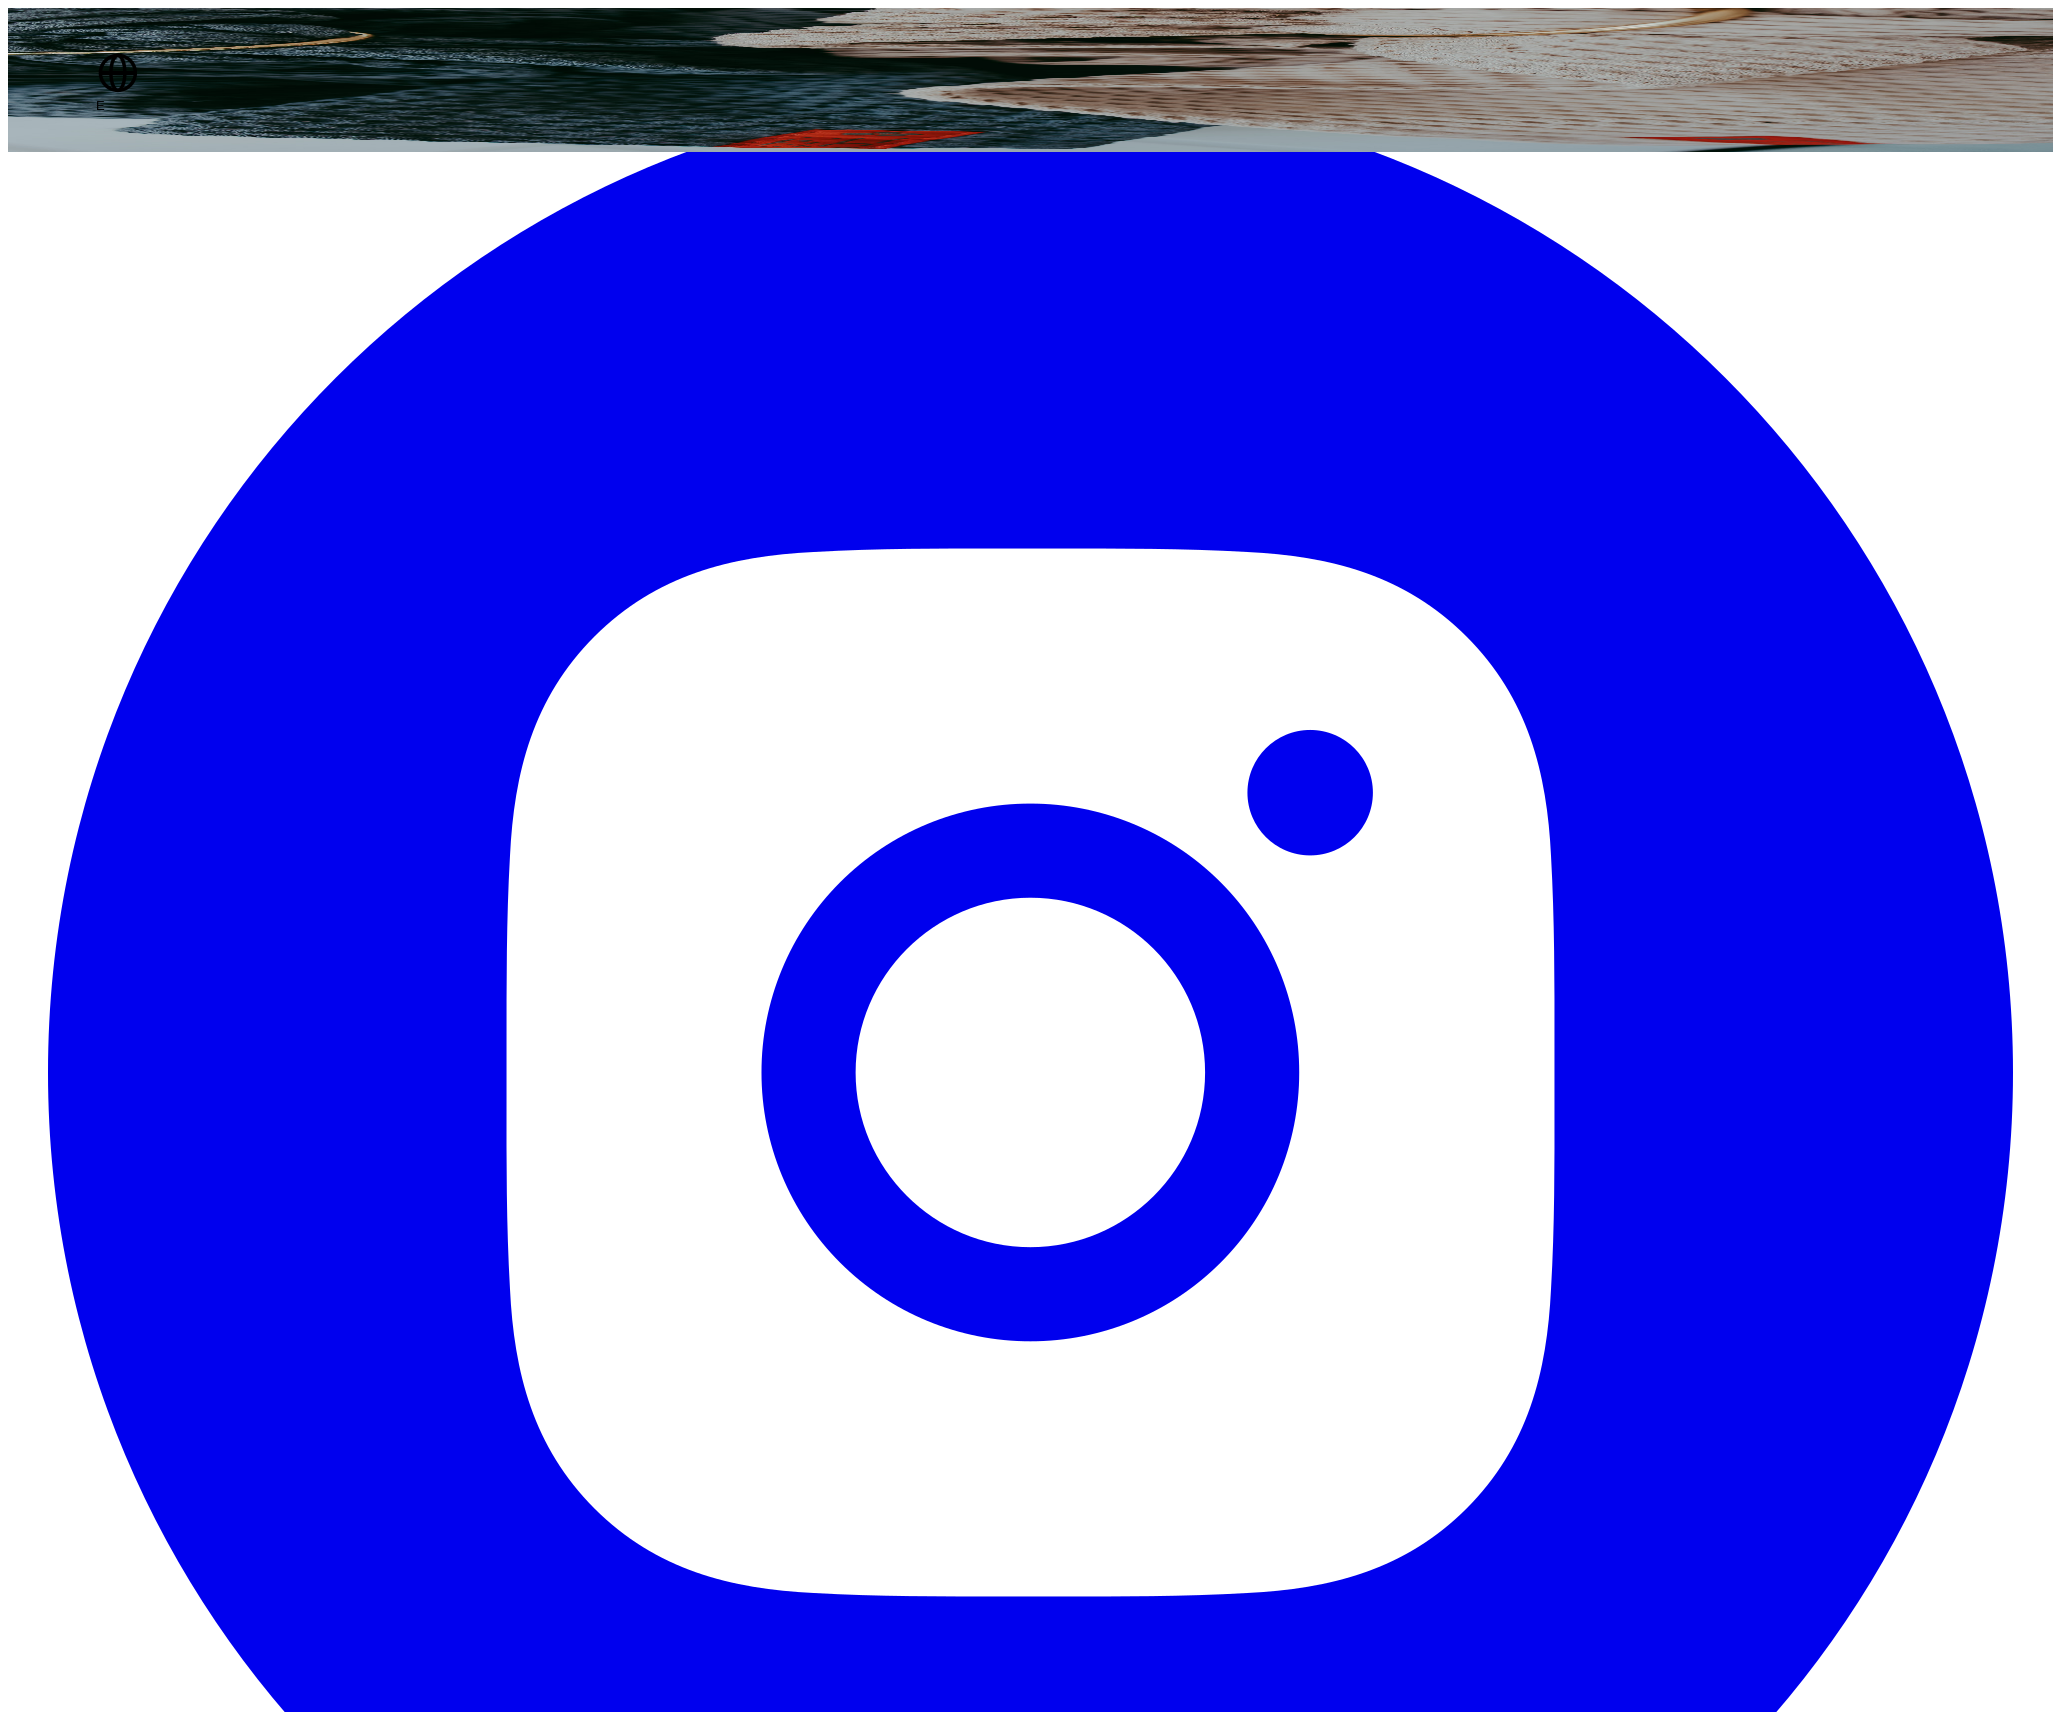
import math
import cairo



def draw_image(context, path, x, y, w, h):
    context.save()
    context.set_source_surface(cairo.ImageSurface.create_from_png(path), x, y)
    context.rectangle(x, y, w, h)
    context.fill()
    context.restore()


def draw(context):
    context.set_source_rgb(1, 1, 1)
    context.paint()
    draw_image(context, "images/1.png", 8, 8, 2045, 144)
    draw_image(context, "images/2.png", 98, 53, 39, 40)
    draw_image(context, "images/3.png", 48, 152, 1965, 1560)
    context.select_font_face("Liberation Sans")
    context.set_font_size(13)
    context.set_source_rgb(0, 0, 0)
    context.move_to(96, 110)
    context.show_text("E")


surface = cairo.ImageSurface(cairo.Format.RGB24, 2061, 1712)
context = cairo.Context(surface)
options = cairo.FontOptions()
options.set_hint_metrics(cairo.HintMetrics.OFF)
options.set_hint_style(cairo.HintStyle.NONE)
context.set_font_options(options)
context.set_miter_limit(4)
draw(context)
surface.write_to_png("out.png")
